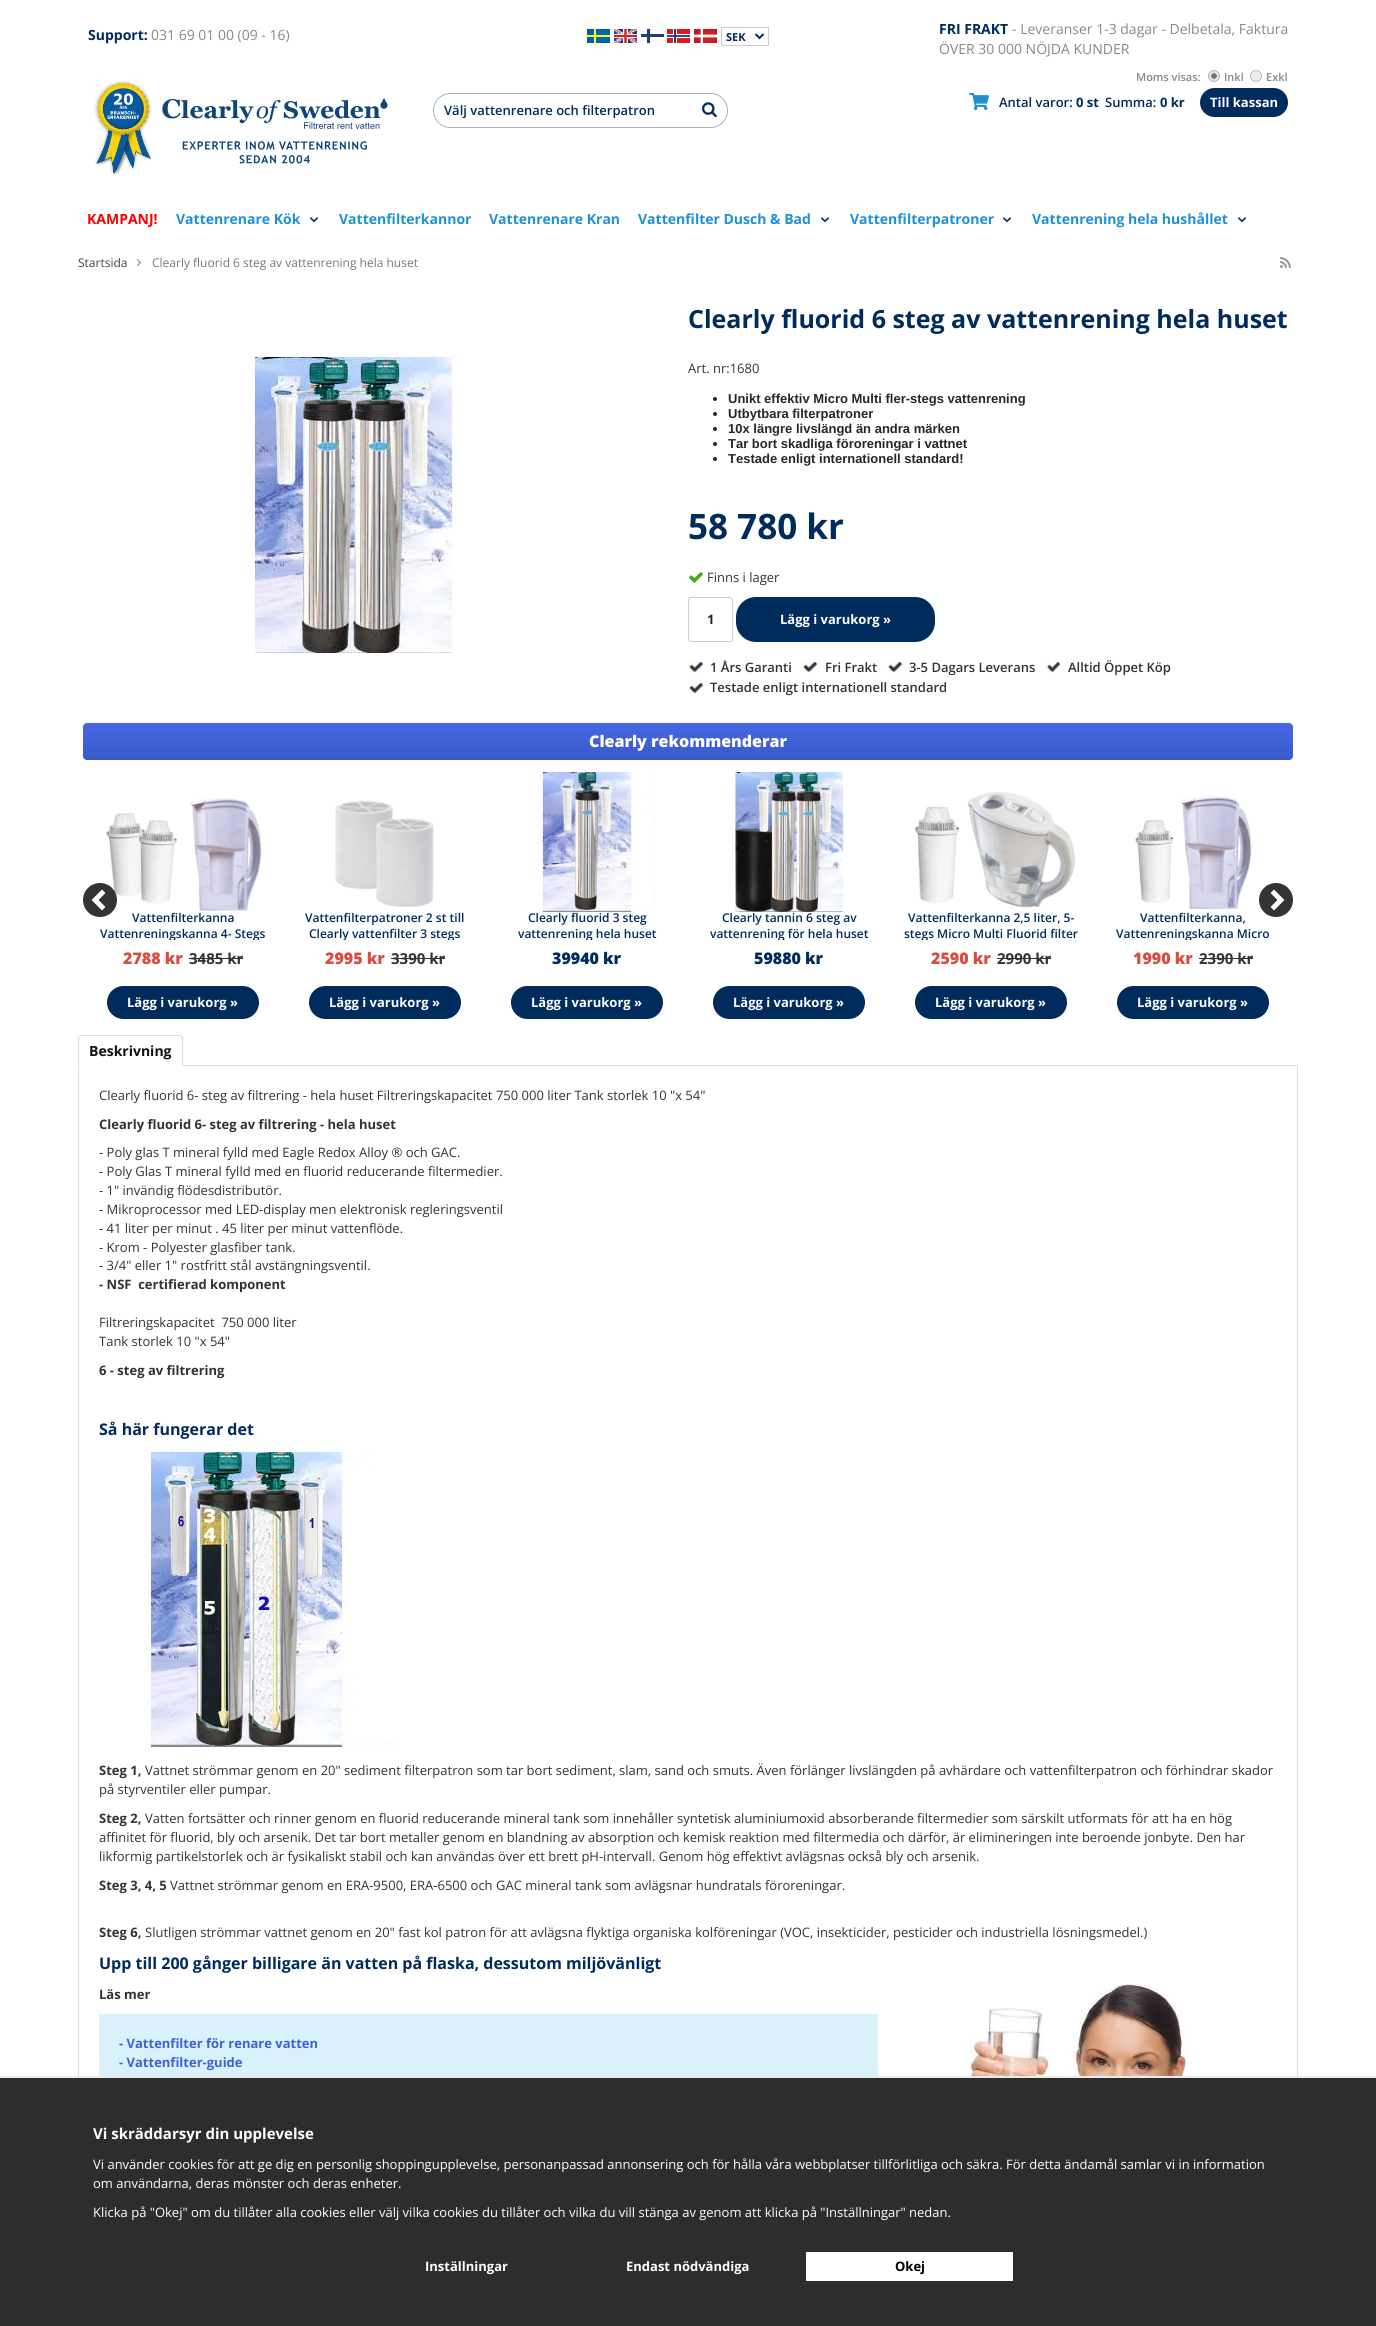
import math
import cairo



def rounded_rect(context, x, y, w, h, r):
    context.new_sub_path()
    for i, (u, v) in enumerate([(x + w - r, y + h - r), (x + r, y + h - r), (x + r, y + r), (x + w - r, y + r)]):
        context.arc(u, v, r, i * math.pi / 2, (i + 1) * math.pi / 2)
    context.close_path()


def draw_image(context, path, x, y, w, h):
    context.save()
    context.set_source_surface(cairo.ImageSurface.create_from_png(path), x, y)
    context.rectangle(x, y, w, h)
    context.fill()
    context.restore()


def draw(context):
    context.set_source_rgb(1, 1, 1)
    context.paint()
    draw_image(context, "images/1.png", 587, 29, 23, 14)
    draw_image(context, "images/2.png", 614, 29, 23, 14)
    draw_image(context, "images/3.png", 641, 29, 23, 14)
    draw_image(context, "images/4.png", 667, 29, 23, 14)
    draw_image(context, "images/5.png", 694, 29, 23, 14)
    context.rectangle(721.5, 27.5, 47, 18)
    context.set_source_rgb(204 / 255, 204 / 255, 204 / 255)
    context.set_line_width(1)
    context.stroke()
    context.new_path()
    context.move_to(755.5, 34)
    context.line_to(759.5, 38)
    context.line_to(763.5, 34)
    context.set_source_rgb(0, 43 / 255, 93 / 255)
    context.set_line_width(2)
    context.stroke()
    draw_image(context, "images/6.png", 94, 80, 294, 95)
    rounded_rect(context, 433.5, 93.5, 294, 34, 17)
    context.set_source_rgb(170 / 255, 178 / 255, 186 / 255)
    context.set_line_width(1)
    context.stroke()
    draw_image(context, "images/7.png", 702, 102, 15, 16)
    draw_image(context, "images/8.png", 1208, 70, 12, 12)
    context.arc(1214, 76, 5.5, 0, 2 * math.pi)
    context.set_source_rgb(187 / 255, 187 / 255, 187 / 255)
    context.stroke()
    context.set_source_rgb(238 / 255, 238 / 255, 238 / 255)
    context.arc(1256, 76, 5.5, 0, 2 * math.pi)
    context.fill_preserve()
    context.set_source_rgb(187 / 255, 187 / 255, 187 / 255)
    context.stroke()
    draw_image(context, "images/9.png", 969, 93, 20, 17)
    context.set_source_rgb(0, 43 / 255, 93 / 255)
    rounded_rect(context, 1200, 88, 88, 29, 14.5)
    context.fill()
    draw_image(context, "images/10.png", 310, 217, 8, 5)
    draw_image(context, "images/10.png", 821, 217, 8, 5)
    draw_image(context, "images/10.png", 1003, 217, 8, 5)
    draw_image(context, "images/10.png", 1238, 217, 8, 5)
    draw_image(context, "images/11.png", 137, 259, 4, 7)
    draw_image(context, "images/12.png", 1280, 257, 11, 11)
    draw_image(context, "images/13.png", 253, 357, 202, 296)
    context.set_source_rgb(38 / 255, 38 / 255, 38 / 255)
    context.arc(715, 399, 2, 0, 2 * math.pi)
    context.fill()
    context.arc(715, 414, 2, 0, 2 * math.pi)
    context.fill()
    context.arc(715, 429, 2, 0, 2 * math.pi)
    context.fill()
    context.arc(715, 444, 2, 0, 2 * math.pi)
    context.fill()
    context.arc(715, 459, 2, 0, 2 * math.pi)
    context.fill()
    draw_image(context, "images/14.png", 689, 572, 14, 11)
    rounded_rect(context, 688.5, 597.5, 44, 44, 2.5)
    context.set_source_rgb(204 / 255, 204 / 255, 204 / 255)
    context.stroke()
    context.set_source_rgb(0, 43 / 255, 93 / 255)
    rounded_rect(context, 736, 597, 199, 45, 20)
    context.fill()
    draw_image(context, "images/15.png", 688, 661, 16, 12)
    draw_image(context, "images/15.png", 802, 661, 16, 12)
    draw_image(context, "images/15.png", 887, 661, 16, 12)
    draw_image(context, "images/16.png", 1046, 661, 15, 12)
    draw_image(context, "images/15.png", 688, 682, 16, 12)
    gradient = cairo.LinearGradient(688, 723, 688, 760)
    gradient.add_color_stop_rgba(0, 69 / 255, 105 / 255, 227 / 255, 1)
    gradient.add_color_stop_rgba(1, 57 / 255, 89 / 255, 201 / 255, 1)
    context.set_source(gradient)
    rounded_rect(context, 83, 723, 1210, 37, 4)
    context.fill()
    draw_image(context, "images/19.png", 106, 798, 156, 113)
    context.set_source_rgba(0, 0, 0, 0.8)
    context.arc(100, 900, 17, 0, 2 * math.pi)
    context.fill()
    draw_image(context, "images/17.png", 91, 889, 15, 22)
    context.set_source_rgb(51 / 255, 51 / 255, 51 / 255)
    context.arc(1276, 900, 17, 0, 2 * math.pi)
    context.fill()
    draw_image(context, "images/18.png", 1270, 889, 15, 22)
    context.rectangle(189, 958, 54, 1)
    context.fill()
    context.set_source_rgb(0, 43 / 255, 93 / 255)
    rounded_rect(context, 107, 986, 152, 33, 16.5)
    context.fill()
    draw_image(context, "images/20.png", 335, 800, 99, 107)
    context.set_source_rgb(51 / 255, 51 / 255, 51 / 255)
    context.rectangle(391, 958, 54, 1)
    context.fill()
    context.set_source_rgb(0, 43 / 255, 93 / 255)
    rounded_rect(context, 309, 986, 152, 33, 16.5)
    context.fill()
    draw_image(context, "images/21.png", 538, 772, 118, 140)
    rounded_rect(context, 511, 986, 152, 33, 16.5)
    context.fill()
    draw_image(context, "images/22.png", 729, 772, 115, 140)
    rounded_rect(context, 713, 986, 152, 33, 16.5)
    context.fill()
    draw_image(context, "images/23.png", 914, 792, 162, 116)
    context.set_source_rgb(51 / 255, 51 / 255, 51 / 255)
    context.rectangle(997, 958, 54, 1)
    context.fill()
    context.set_source_rgb(0, 43 / 255, 93 / 255)
    rounded_rect(context, 915, 986, 152, 33, 16.5)
    context.fill()
    draw_image(context, "images/24.png", 1135, 795, 117, 114)
    context.set_source_rgb(51 / 255, 51 / 255, 51 / 255)
    context.rectangle(1199, 958, 54, 1)
    context.fill()
    context.set_source_rgb(0, 43 / 255, 93 / 255)
    rounded_rect(context, 1117, 986, 152, 33, 16.5)
    context.fill()
    context.rectangle(78.5, 1065.5, 1219, 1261)
    context.set_source_rgb(221 / 255, 221 / 255, 221 / 255)
    context.stroke()
    context.set_source_rgb(1, 1, 1)
    context.new_path()
    context.move_to(81, 1035)
    context.line_to(180, 1035)
    context.curve_to(181.5, 1035, 183, 1036.5, 183, 1038)
    context.line_to(183, 1066)
    context.line_to(78, 1066)
    context.line_to(78, 1038)
    context.curve_to(78, 1036.5, 79.5, 1035, 81, 1035)
    context.close_path()
    context.fill()
    context.set_source_rgb(221 / 255, 221 / 255, 221 / 255)
    context.new_path()
    context.move_to(81, 1035)
    context.line_to(79, 1036)
    context.line_to(80, 1037)
    context.line_to(81, 1036)
    context.line_to(164, 1036)
    context.line_to(180, 1036)
    context.line_to(181, 1037)
    context.line_to(182, 1036)
    context.line_to(180, 1035)
    context.close_path()
    context.fill()
    context.new_path()
    context.move_to(183, 1066)
    context.line_to(183, 1038)
    context.curve_to(183, 1037, 183, 1036, 182, 1036)
    context.line_to(181.5, 1036.5)
    context.line_to(182, 1038)
    context.line_to(182, 1065)
    context.close_path()
    context.fill()
    context.set_source_rgb(1, 1, 1)
    context.new_path()
    context.move_to(183, 1066)
    context.line_to(182, 1065)
    context.line_to(79, 1065)
    context.line_to(78, 1066)
    context.close_path()
    context.fill()
    context.set_source_rgb(221 / 255, 221 / 255, 221 / 255)
    context.new_path()
    context.move_to(78, 1066)
    context.line_to(79, 1065)
    context.line_to(79, 1038)
    context.line_to(79.5, 1036.5)
    context.line_to(79, 1036)
    context.curve_to(78, 1036, 78, 1037, 78, 1038)
    context.close_path()
    context.fill()
    draw_image(context, "images/25.png", 147, 1452, 247, 295)
    context.set_source_rgb(216 / 255, 241 / 255, 250 / 255)
    context.rectangle(99, 2014, 779, 62)
    context.fill()
    draw_image(context, "images/26.png", 928, 1984, 349, 92)
    context.set_source_rgb(45 / 255, 45 / 255, 45 / 255)
    context.rectangle(0, 2078, 1376, 248)
    context.fill()
    context.set_source_rgb(233 / 255, 233 / 255, 233 / 255)
    context.rectangle(0, 2076, 1376, 2)
    context.fill()
    context.set_source_rgb(1, 1, 1)
    context.rectangle(806, 2252, 207, 29)
    context.fill()
    context.select_font_face("Open Sans", cairo.FontSlant.NORMAL, cairo.FontWeight.BOLD)
    context.set_font_size(14)
    context.set_source_rgb(0, 43 / 255, 93 / 255)
    context.move_to(88, 40)
    context.show_text("Support:")
    context.select_font_face("Open Sans")
    context.set_source_rgb(136 / 255, 136 / 255, 136 / 255)
    context.move_to(151, 40)
    context.show_text("031 69 01 00 (09 - 16)")
    context.select_font_face("Open Sans", cairo.FontSlant.NORMAL, cairo.FontWeight.BOLD)
    context.set_font_size(11)
    context.set_source_rgb(0, 43 / 255, 93 / 255)
    context.move_to(726, 41)
    context.show_text("SEK")
    context.set_font_size(14)
    context.move_to(939, 34)
    context.show_text("FRI FRAKT")
    context.select_font_face("Open Sans")
    context.set_source_rgb(136 / 255, 136 / 255, 136 / 255)
    context.move_to(1012, 34)
    context.show_text("- Leveranser 1-3 dagar - Delbetala, Faktura")
    context.move_to(939, 54)
    context.show_text("ÖVER 30 000 NÖJDA KUNDER")
    context.select_font_face("Open Sans SemiBold")
    context.set_font_size(13)
    context.set_source_rgb(0, 43 / 255, 93 / 255)
    context.move_to(444, 115)
    context.show_text("Välj vattenrenare och filterpatron")
    context.set_font_size(11)
    context.set_source_rgb(136 / 255, 136 / 255, 136 / 255)
    context.move_to(1136, 81)
    context.show_text("Moms visas:")
    context.move_to(1224, 81)
    context.show_text("Inkl")
    context.move_to(1266, 81)
    context.show_text("Exkl")
    context.set_font_size(13)
    context.set_source_rgb(0, 43 / 255, 93 / 255)
    context.move_to(999, 107)
    context.show_text("Antal varor:")
    context.select_font_face("Open Sans", cairo.FontSlant.NORMAL, cairo.FontWeight.BOLD)
    context.move_to(1076, 107)
    context.show_text("0 st")
    context.select_font_face("Open Sans SemiBold")
    context.move_to(1105, 107)
    context.show_text("Summa:")
    context.select_font_face("Open Sans", cairo.FontSlant.NORMAL, cairo.FontWeight.BOLD)
    context.move_to(1160, 107)
    context.show_text("0 kr")
    context.set_source_rgb(1, 1, 1)
    context.move_to(1210, 107)
    context.show_text("Till kassan")
    context.set_font_size(14)
    context.set_source_rgb(1, 0, 0)
    context.move_to(87, 224)
    context.show_text("KAMPANJ!")
    context.set_source_rgb(30 / 255, 145 / 255, 214 / 255)
    context.move_to(176, 224)
    context.show_text("Vattenrenare Kök")
    context.move_to(339, 224)
    context.show_text("Vattenfilterkannor")
    context.move_to(489, 224)
    context.show_text("Vattenrenare Kran")
    context.move_to(638, 224)
    context.show_text("Vattenfilter Dusch & Bad")
    context.move_to(850, 224)
    context.show_text("Vattenfilterpatroner")
    context.move_to(1032, 224)
    context.show_text("Vattenrening hela hushållet")
    context.select_font_face("Open Sans")
    context.set_font_size(12)
    context.set_source_rgb(68 / 255, 68 / 255, 68 / 255)
    context.move_to(78, 267)
    context.show_text("Startsida")
    context.set_source_rgb(119 / 255, 119 / 255, 119 / 255)
    context.move_to(152, 267)
    context.show_text("Clearly fluorid 6 steg av vattenrening hela huset")
    context.select_font_face("Open Sans", cairo.FontSlant.NORMAL, cairo.FontWeight.BOLD)
    context.set_font_size(25)
    context.set_source_rgb(0, 43 / 255, 93 / 255)
    context.move_to(688, 328)
    context.show_text("Clearly fluorid 6 steg av vattenrening hela huset")
    context.select_font_face("Open Sans")
    context.set_font_size(13)
    context.set_source_rgb(51 / 255, 51 / 255, 51 / 255)
    context.move_to(688, 373)
    context.show_text("Art. nr:1680")
    context.select_font_face("Liberation Sans", cairo.FontSlant.NORMAL, cairo.FontWeight.BOLD)
    context.set_source_rgb(38 / 255, 38 / 255, 38 / 255)
    context.move_to(728, 403)
    context.show_text("Unikt effektiv Micro Multi fler-stegs vattenrening")
    context.move_to(728, 418)
    context.show_text("Utbytbara filterpatroner")
    context.move_to(728, 433)
    context.show_text("10x längre livslängd än andra märken")
    context.move_to(728, 448)
    context.show_text("Tar bort skadliga föroreningar i vattnet")
    context.move_to(728, 463)
    context.show_text("Testade enligt internationell standard!")
    context.select_font_face("Open Sans", cairo.FontSlant.NORMAL, cairo.FontWeight.BOLD)
    context.set_font_size(35)
    context.set_source_rgb(0, 43 / 255, 93 / 255)
    context.move_to(688, 539)
    context.show_text("58 780 kr")
    context.select_font_face("Open Sans")
    context.set_font_size(13)
    context.set_source_rgb(51 / 255, 51 / 255, 51 / 255)
    context.move_to(707, 582)
    context.show_text("Finns i lager")
    context.select_font_face("Open Sans", cairo.FontSlant.NORMAL, cairo.FontWeight.BOLD)
    context.set_source_rgb(38 / 255, 38 / 255, 38 / 255)
    context.move_to(707, 624)
    context.show_text("1")
    context.set_source_rgb(1, 1, 1)
    context.move_to(780, 624)
    context.show_text("Lägg i varukorg »")
    context.select_font_face("Open Sans SemiBold")
    context.set_source_rgb(51 / 255, 51 / 255, 51 / 255)
    context.move_to(710, 672)
    context.show_text("1 Års Garanti")
    context.move_to(825, 672)
    context.show_text("Fri Frakt")
    context.move_to(909, 672)
    context.show_text("3-5 Dagars Leverans")
    context.move_to(1068, 672)
    context.show_text("Alltid Öppet Köp")
    context.move_to(710, 692)
    context.show_text("Testade enligt internationell standard")
    context.select_font_face("Open Sans ExtraBold")
    context.set_font_size(16)
    context.set_source_rgb(1, 1, 1)
    context.move_to(589, 747)
    context.show_text("Clearly rekommenderar")
    context.select_font_face("Open Sans SemiBold")
    context.set_font_size(12)
    context.set_source_rgb(0, 43 / 255, 93 / 255)
    context.move_to(132, 922)
    context.show_text("Vattenfilterkanna")
    context.save()
    context.rectangle(94, 910, 178, 30)
    context.clip()
    context.move_to(100, 938)
    context.show_text("Vattenreningskanna 4- Stegs")
    context.restore()
    context.select_font_face("Open Sans ExtraBold")
    context.set_font_size(16)
    context.set_source_rgb(219 / 255, 76 / 255, 64 / 255)
    context.move_to(123, 964)
    context.show_text("2788 kr")
    context.select_font_face("Open Sans", cairo.FontSlant.NORMAL, cairo.FontWeight.BOLD)
    context.set_font_size(15)
    context.set_source_rgb(51 / 255, 51 / 255, 51 / 255)
    context.move_to(189, 964)
    context.show_text("3485 kr")
    context.set_font_size(13)
    context.set_source_rgb(1, 1, 1)
    context.move_to(127, 1007)
    context.show_text("Lägg i varukorg »")
    context.select_font_face("Open Sans SemiBold")
    context.set_font_size(12)
    context.set_source_rgb(0, 43 / 255, 93 / 255)
    context.move_to(305, 922)
    context.show_text("Vattenfilterpatroner 2 st till")
    context.save()
    context.rectangle(296, 910, 178, 30)
    context.clip()
    context.move_to(309, 938)
    context.show_text("Clearly vattenfilter 3 stegs")
    context.restore()
    context.select_font_face("Open Sans ExtraBold")
    context.set_font_size(16)
    context.set_source_rgb(219 / 255, 76 / 255, 64 / 255)
    context.move_to(325, 964)
    context.show_text("2995 kr")
    context.select_font_face("Open Sans", cairo.FontSlant.NORMAL, cairo.FontWeight.BOLD)
    context.set_font_size(15)
    context.set_source_rgb(51 / 255, 51 / 255, 51 / 255)
    context.move_to(391, 964)
    context.show_text("3390 kr")
    context.set_font_size(13)
    context.set_source_rgb(1, 1, 1)
    context.move_to(329, 1007)
    context.show_text("Lägg i varukorg »")
    context.select_font_face("Open Sans SemiBold")
    context.set_font_size(12)
    context.set_source_rgb(0, 43 / 255, 93 / 255)
    context.move_to(528, 922)
    context.show_text("Clearly fluorid 3 steg")
    context.save()
    context.rectangle(498, 910, 178, 30)
    context.clip()
    context.move_to(518, 938)
    context.show_text("vattenrening hela huset")
    context.restore()
    context.select_font_face("Open Sans ExtraBold")
    context.set_font_size(16)
    context.move_to(552, 964)
    context.show_text("39940 kr")
    context.select_font_face("Open Sans", cairo.FontSlant.NORMAL, cairo.FontWeight.BOLD)
    context.set_font_size(13)
    context.set_source_rgb(1, 1, 1)
    context.move_to(531, 1007)
    context.show_text("Lägg i varukorg »")
    context.select_font_face("Open Sans SemiBold")
    context.set_font_size(12)
    context.set_source_rgb(0, 43 / 255, 93 / 255)
    context.move_to(722, 922)
    context.show_text("Clearly tannin 6 steg av")
    context.save()
    context.rectangle(700, 910, 178, 30)
    context.clip()
    context.move_to(710, 938)
    context.show_text("vattenrening för hela huset")
    context.restore()
    context.select_font_face("Open Sans ExtraBold")
    context.set_font_size(16)
    context.move_to(754, 964)
    context.show_text("59880 kr")
    context.select_font_face("Open Sans", cairo.FontSlant.NORMAL, cairo.FontWeight.BOLD)
    context.set_font_size(13)
    context.set_source_rgb(1, 1, 1)
    context.move_to(733, 1007)
    context.show_text("Lägg i varukorg »")
    context.select_font_face("Open Sans SemiBold")
    context.set_font_size(12)
    context.set_source_rgb(0, 43 / 255, 93 / 255)
    context.move_to(908, 922)
    context.show_text("Vattenfilterkanna 2,5 liter, 5-")
    context.save()
    context.rectangle(902, 910, 178, 30)
    context.clip()
    context.move_to(904, 938)
    context.show_text("stegs Micro Multi Fluorid filter")
    context.restore()
    context.select_font_face("Open Sans ExtraBold")
    context.set_font_size(16)
    context.set_source_rgb(219 / 255, 76 / 255, 64 / 255)
    context.move_to(931, 964)
    context.show_text("2590 kr")
    context.select_font_face("Open Sans", cairo.FontSlant.NORMAL, cairo.FontWeight.BOLD)
    context.set_font_size(15)
    context.set_source_rgb(51 / 255, 51 / 255, 51 / 255)
    context.move_to(997, 964)
    context.show_text("2990 kr")
    context.set_font_size(13)
    context.set_source_rgb(1, 1, 1)
    context.move_to(935, 1007)
    context.show_text("Lägg i varukorg »")
    context.select_font_face("Open Sans SemiBold")
    context.set_font_size(12)
    context.set_source_rgb(0, 43 / 255, 93 / 255)
    context.move_to(1140, 922)
    context.show_text("Vattenfilterkanna,")
    context.save()
    context.rectangle(1104, 910, 178, 30)
    context.clip()
    context.move_to(1116, 938)
    context.show_text("Vattenreningskanna Micro")
    context.restore()
    context.select_font_face("Open Sans ExtraBold")
    context.set_font_size(16)
    context.set_source_rgb(219 / 255, 76 / 255, 64 / 255)
    context.move_to(1133, 964)
    context.show_text("1990 kr")
    context.select_font_face("Open Sans", cairo.FontSlant.NORMAL, cairo.FontWeight.BOLD)
    context.set_font_size(15)
    context.set_source_rgb(51 / 255, 51 / 255, 51 / 255)
    context.move_to(1199, 964)
    context.show_text("2390 kr")
    context.set_font_size(13)
    context.set_source_rgb(1, 1, 1)
    context.move_to(1137, 1007)
    context.show_text("Lägg i varukorg »")
    context.set_font_size(14)
    context.set_source_rgb(17 / 255, 17 / 255, 17 / 255)
    context.move_to(89, 1056)
    context.show_text("Beskrivning")
    context.select_font_face("Open Sans")
    context.set_font_size(13)
    context.set_source_rgb(51 / 255, 51 / 255, 51 / 255)
    context.move_to(99, 1100)
    context.show_text("Clearly fluorid 6- steg av filtrering - hela huset Filtreringskapacitet 750 000 liter Tank storlek 10 \"x 54\"")
    context.select_font_face("Open Sans", cairo.FontSlant.NORMAL, cairo.FontWeight.BOLD)
    context.move_to(99, 1129)
    context.show_text("Clearly fluorid 6- steg av filtrering - hela huset")
    context.select_font_face("Open Sans")
    context.move_to(99, 1157)
    context.show_text("- Poly glas T mineral fylld med Eagle Redox Alloy ® och GAC.")
    context.move_to(99, 1176)
    context.show_text("- Poly Glas T mineral fylld med en fluorid reducerande filtermedier.")
    context.move_to(99, 1195)
    context.show_text("- 1\" invändig flödesdistributör.")
    context.move_to(99, 1214)
    context.show_text("- Mikroprocessor med LED-display men elektronisk regleringsventil")
    context.move_to(99, 1233)
    context.show_text("- 41 liter per minut . 45 liter per minut vattenflöde.")
    context.move_to(99, 1252)
    context.show_text("- Krom - Polyester glasfiber tank.")
    context.move_to(99, 1270)
    context.show_text("- 3/4\" eller 1\" rostfritt stål avstängningsventil.")
    context.select_font_face("Open Sans", cairo.FontSlant.NORMAL, cairo.FontWeight.BOLD)
    context.move_to(99, 1289)
    context.show_text("- NSF  certifierad komponent")
    context.select_font_face("Open Sans")
    context.move_to(99, 1327)
    context.show_text("Filtreringskapacitet  750 000 liter")
    context.move_to(99, 1346)
    context.show_text("Tank storlek 10 \"x 54\"")
    context.select_font_face("Open Sans", cairo.FontSlant.NORMAL, cairo.FontWeight.BOLD)
    context.move_to(99, 1375)
    context.show_text("6 - steg av filtrering")
    context.set_font_size(16)
    context.set_source_rgb(0, 43 / 255, 93 / 255)
    context.move_to(99, 1435)
    context.show_text("Så här fungerar det")
    context.set_font_size(13)
    context.set_source_rgb(51 / 255, 51 / 255, 51 / 255)
    context.move_to(99, 1775)
    context.show_text("Steg 1,")
    context.select_font_face("Open Sans")
    context.move_to(145, 1775)
    context.show_text("Vattnet strömmar genom en 20\" sediment filterpatron som tar bort sediment, slam, sand och smuts. Även förlänger livslängden på avhärdare och vattenfilterpatron och förhindrar skador")
    context.move_to(99, 1794)
    context.show_text("på styrventiler eller pumpar.")
    context.select_font_face("Open Sans", cairo.FontSlant.NORMAL, cairo.FontWeight.BOLD)
    context.move_to(99, 1823)
    context.show_text("Steg 2,")
    context.select_font_face("Open Sans")
    context.move_to(145, 1823)
    context.show_text("Vatten fortsätter och rinner genom en fluorid reducerande mineral tank som innehåller syntetisk aluminiumoxid absorberande filtermedier som särskilt utformats för att ha en hög")
    context.move_to(99, 1842)
    context.show_text("affinitet för fluorid, bly och arsenik. Det tar bort metaller genom en blandning av absorption och kemisk reaktion med filtermedia och därför, är elimineringen inte beroende jonbyte. Den har")
    context.move_to(99, 1861)
    context.show_text("likformig partikelstorlek och är fysikaliskt stabil och kan användas över ett brett pH-intervall. Genom hög effektivt avlägsnas också bly och arsenik.")
    context.select_font_face("Open Sans", cairo.FontSlant.NORMAL, cairo.FontWeight.BOLD)
    context.move_to(99, 1890)
    context.show_text("Steg 3, 4, 5")
    context.select_font_face("Open Sans")
    context.move_to(170, 1890)
    context.show_text("Vattnet strömmar genom en ERA-9500, ERA-6500 och GAC mineral tank som avlägsnar hundratals föroreningar.")
    context.select_font_face("Open Sans", cairo.FontSlant.NORMAL, cairo.FontWeight.BOLD)
    context.move_to(99, 1937)
    context.show_text("Steg 6,")
    context.select_font_face("Open Sans")
    context.move_to(145, 1937)
    context.show_text("Slutligen strömmar vattnet genom en 20\" fast kol patron för att avlägsna flyktiga organiska kolföreningar (VOC, insekticider, pesticider och industriella lösningsmedel.)")
    context.select_font_face("Open Sans", cairo.FontSlant.NORMAL, cairo.FontWeight.BOLD)
    context.set_font_size(16)
    context.set_source_rgb(0, 43 / 255, 93 / 255)
    context.move_to(99, 1969)
    context.show_text("Upp till 200 gånger billigare än vatten på flaska, dessutom miljövänligt")
    context.set_font_size(13)
    context.set_source_rgb(51 / 255, 51 / 255, 51 / 255)
    context.move_to(99, 1999)
    context.show_text("Läs mer")
    context.set_source_rgb(62 / 255, 97 / 255, 213 / 255)
    context.move_to(119, 2048)
    context.show_text("- Vattenfilter för renare vatten")
    context.move_to(119, 2067)
    context.show_text("- Vattenfilter-guide")
    context.set_font_size(15)
    context.set_source_rgb(1, 1, 1)
    context.move_to(93, 2139)
    context.show_text("Vi skräddarsyr din upplevelse")
    context.select_font_face("Open Sans")
    context.set_font_size(13)
    context.move_to(93, 2169)
    context.show_text("Vi använder cookies för att ge dig en personlig shoppingupplevelse, personanpassad annonsering och för hålla våra webbplatser tillförlitliga och säkra. För detta ändamål samlar vi in information")
    context.move_to(93, 2188)
    context.show_text("om användarna, deras mönster och deras enheter.")
    context.move_to(93, 2217)
    context.show_text("Klicka på \"Okej\" om du tillåter alla cookies eller välj vilka cookies du tillåter och vilka du vill stänga av genom att klicka på \"Inställningar\" nedan.")
    context.select_font_face("Open Sans", cairo.FontSlant.NORMAL, cairo.FontWeight.BOLD)
    context.move_to(425, 2271)
    context.show_text("Inställningar")
    context.move_to(626, 2271)
    context.show_text("Endast nödvändiga")
    context.set_source_rgb(0, 0, 0)
    context.move_to(895, 2271)
    context.show_text("Okej")


surface = cairo.ImageSurface(cairo.Format.RGB24, 1376, 2326)
context = cairo.Context(surface)
options = cairo.FontOptions()
options.set_hint_metrics(cairo.HintMetrics.OFF)
options.set_hint_style(cairo.HintStyle.NONE)
context.set_font_options(options)
context.set_miter_limit(4)
draw(context)
surface.write_to_png("out.png")
